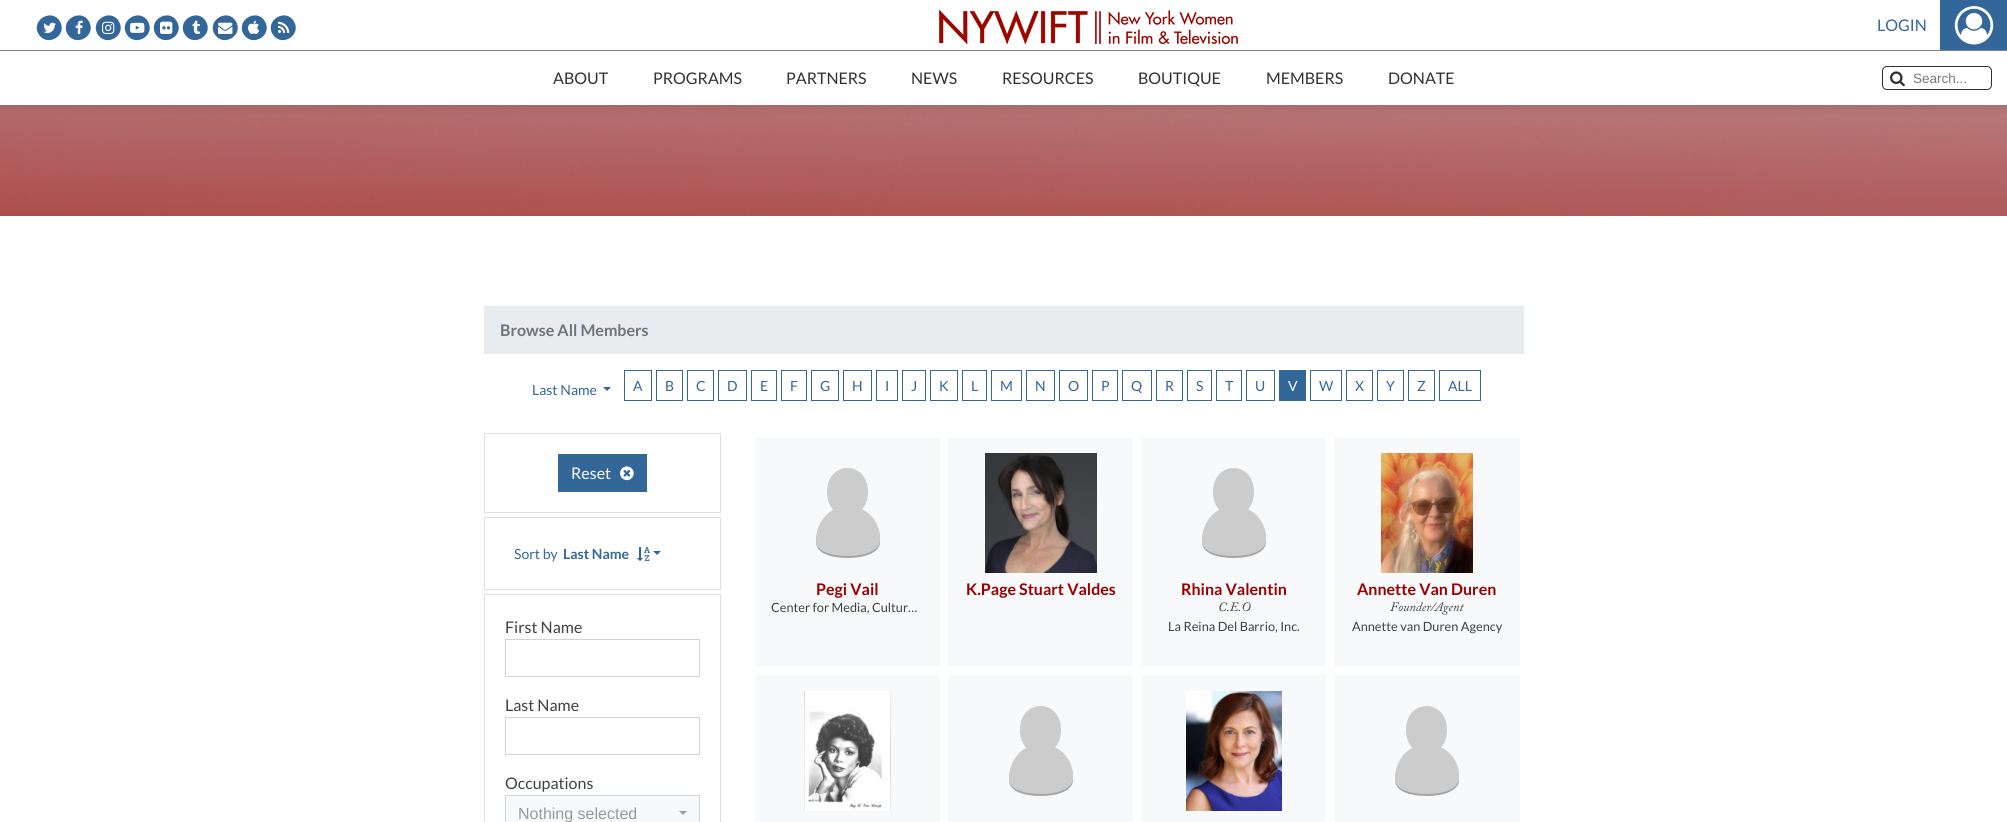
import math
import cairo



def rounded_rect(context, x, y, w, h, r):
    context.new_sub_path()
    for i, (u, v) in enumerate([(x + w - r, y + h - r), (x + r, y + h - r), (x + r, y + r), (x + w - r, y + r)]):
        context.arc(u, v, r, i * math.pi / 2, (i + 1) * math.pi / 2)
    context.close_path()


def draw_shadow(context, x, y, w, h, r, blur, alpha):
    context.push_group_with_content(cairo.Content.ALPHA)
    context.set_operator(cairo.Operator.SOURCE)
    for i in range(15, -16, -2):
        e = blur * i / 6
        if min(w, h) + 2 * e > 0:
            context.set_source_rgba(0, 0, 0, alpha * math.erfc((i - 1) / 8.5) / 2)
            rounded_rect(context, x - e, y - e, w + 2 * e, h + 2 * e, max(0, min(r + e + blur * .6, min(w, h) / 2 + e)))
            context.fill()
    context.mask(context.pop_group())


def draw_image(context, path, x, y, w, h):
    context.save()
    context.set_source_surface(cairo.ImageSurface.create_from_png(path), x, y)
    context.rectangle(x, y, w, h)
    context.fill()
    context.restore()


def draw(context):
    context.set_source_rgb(1, 1, 1)
    context.paint()
    draw_image(context, "images/13.png", 0, 105, 2007, 111)
    context.set_source_rgb(4 / 255, 4 / 255, 4 / 255)
    draw_shadow(context, 0, 0, 2007, 105, 0, 7.5, 0.15)
    context.set_source_rgb(1, 1, 1)
    context.rectangle(0, 0, 2007, 105)
    context.fill()
    context.set_source_rgb(128 / 255, 128 / 255, 128 / 255)
    context.rectangle(0, 50, 2007, 1)
    context.fill()
    context.set_source_rgb(51 / 255, 102 / 255, 153 / 255)
    context.new_path()
    context.move_to(60, 21.5)
    context.curve_to(68, 35.5, 47, 48, 38.5, 34)
    context.curve_to(30.5, 20, 52, 7.5, 60, 21.5)
    context.close_path()
    context.fill()
    draw_image(context, "images/1.png", 43, 22, 13, 11)
    context.new_path()
    context.move_to(89, 21.5)
    context.curve_to(97, 35.5, 76, 48, 67.5, 34)
    context.curve_to(59.5, 20, 81, 7.5, 89, 21.5)
    context.close_path()
    context.fill()
    draw_image(context, "images/2.png", 75, 20, 8, 14)
    context.new_path()
    context.move_to(119, 21.5)
    context.curve_to(127, 35.5, 106, 48, 97.5, 34)
    context.curve_to(89.5, 20, 111, 7.5, 119, 21.5)
    context.close_path()
    context.fill()
    draw_image(context, "images/3.png", 102, 21, 13, 13)
    context.new_path()
    context.move_to(148, 21.5)
    context.curve_to(156, 35.5, 135, 48, 126.5, 34)
    context.curve_to(118.5, 20, 140, 7.5, 148, 21.5)
    context.close_path()
    context.fill()
    draw_image(context, "images/4.png", 130, 22, 15, 11)
    context.new_path()
    context.move_to(177, 21.5)
    context.curve_to(185, 35.5, 164, 48, 155.5, 34)
    context.curve_to(147.5, 20, 169, 7.5, 177, 21.5)
    context.close_path()
    context.fill()
    draw_image(context, "images/5.png", 160, 21, 13, 13)
    context.new_path()
    context.move_to(206, 21.5)
    context.curve_to(214, 35.5, 193, 48, 184.5, 34)
    context.curve_to(176.5, 20, 198, 7.5, 206, 21.5)
    context.close_path()
    context.fill()
    draw_image(context, "images/6.png", 192, 20, 9, 14)
    context.new_path()
    context.move_to(236, 21.5)
    context.curve_to(244, 35.5, 223, 48, 214.5, 34)
    context.curve_to(206.5, 20, 228, 7.5, 236, 21.5)
    context.close_path()
    context.fill()
    draw_image(context, "images/7.png", 218, 22, 15, 12)
    context.new_path()
    context.move_to(265, 21.5)
    context.curve_to(273, 35.5, 252, 48, 243.5, 34)
    context.curve_to(235.5, 20, 257, 7.5, 265, 21.5)
    context.close_path()
    context.fill()
    draw_image(context, "images/8.png", 248, 20, 12, 14)
    context.new_path()
    context.move_to(294, 21.5)
    context.curve_to(302, 35.5, 281, 48, 272.5, 34)
    context.curve_to(264.5, 20, 286, 7.5, 294, 21.5)
    context.close_path()
    context.fill()
    draw_image(context, "images/9.png", 278, 21, 12, 12)
    draw_image(context, "images/10.png", 938, 9, 300, 36)
    context.rectangle(1940, 0, 67, 50)
    context.fill()
    draw_image(context, "images/11.png", 1954, 6, 40, 39)
    rounded_rect(context, 1882.5, 66.5, 109, 23, 4.5)
    context.set_source_rgb(48 / 255, 48 / 255, 47 / 255)
    context.set_line_width(1)
    context.stroke()
    draw_image(context, "images/12.png", 1890, 71, 15, 16)
    context.set_source_rgb(233 / 255, 236 / 255, 239 / 255)
    context.rectangle(484, 306, 1040, 48)
    context.fill()
    context.set_source_rgb(51 / 255, 102 / 255, 153 / 255)
    context.new_path()
    context.move_to(603, 387)
    context.line_to(611, 387)
    context.line_to(607, 391)
    context.close_path()
    context.fill()
    context.rectangle(624.5, 370.5, 27, 30)
    context.stroke()
    context.rectangle(656.5, 370.5, 26, 30)
    context.stroke()
    context.rectangle(687.5, 370.5, 26, 30)
    context.stroke()
    context.rectangle(718.5, 370.5, 28, 30)
    context.stroke()
    context.rectangle(751.5, 370.5, 25, 30)
    context.stroke()
    context.rectangle(781.5, 370.5, 25, 30)
    context.stroke()
    context.rectangle(811.5, 370.5, 27, 30)
    context.stroke()
    context.rectangle(843.5, 370.5, 28, 30)
    context.stroke()
    context.rectangle(876.5, 370.5, 21, 30)
    context.stroke()
    context.rectangle(902.5, 370.5, 23, 30)
    context.stroke()
    context.rectangle(930.5, 370.5, 27, 30)
    context.stroke()
    context.rectangle(962.5, 370.5, 24, 30)
    context.stroke()
    context.rectangle(991.5, 370.5, 30, 30)
    context.stroke()
    context.rectangle(1026.5, 370.5, 28, 30)
    context.stroke()
    context.rectangle(1059.5, 370.5, 28, 30)
    context.stroke()
    context.rectangle(1092.5, 370.5, 25, 30)
    context.stroke()
    context.rectangle(1122.5, 370.5, 29, 30)
    context.stroke()
    context.rectangle(1156.5, 370.5, 26, 30)
    context.stroke()
    context.rectangle(1187.5, 370.5, 24, 30)
    context.stroke()
    context.rectangle(1216.5, 370.5, 25, 30)
    context.stroke()
    context.rectangle(1246.5, 370.5, 28, 30)
    context.stroke()
    context.rectangle(1279, 370, 27, 31)
    context.fill()
    context.rectangle(1310.5, 370.5, 31, 30)
    context.stroke()
    context.rectangle(1346.5, 370.5, 26, 30)
    context.stroke()
    context.rectangle(1377.5, 370.5, 26, 30)
    context.stroke()
    context.rectangle(1408.5, 370.5, 26, 30)
    context.stroke()
    context.rectangle(1439.5, 370.5, 41, 30)
    context.stroke()
    context.rectangle(484.5, 433.5, 236, 79)
    context.set_source_rgb(223 / 255, 223 / 255, 223 / 255)
    context.stroke()
    context.set_source_rgb(51 / 255, 102 / 255, 153 / 255)
    context.rectangle(558, 454, 89, 38)
    context.fill()
    draw_image(context, "images/14.png", 620, 466, 14, 15)
    context.rectangle(484.5, 517.5, 236, 72)
    context.set_source_rgb(223 / 255, 223 / 255, 223 / 255)
    context.stroke()
    draw_image(context, "images/15.png", 637, 547, 13, 14)
    context.set_source_rgb(51 / 255, 102 / 255, 153 / 255)
    context.new_path()
    context.move_to(653, 551)
    context.line_to(661, 551)
    context.line_to(657, 555)
    context.close_path()
    context.fill()
    context.rectangle(484.5, 594.5, 236, 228)
    context.set_source_rgb(223 / 255, 223 / 255, 223 / 255)
    context.stroke()
    context.rectangle(505.5, 639.5, 194, 37)
    context.set_source_rgb(206 / 255, 212 / 255, 218 / 255)
    context.stroke()
    context.rectangle(505.5, 717.5, 194, 37)
    context.stroke()
    context.set_source_rgb(248 / 255, 249 / 255, 250 / 255)
    context.rectangle(505.5, 795.5, 194, 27)
    context.fill_preserve()
    context.set_source_rgb(206 / 255, 212 / 255, 218 / 255)
    context.stroke()
    context.set_source_rgb(153 / 255, 153 / 255, 153 / 255)
    context.new_path()
    context.move_to(679, 811)
    context.line_to(687, 811)
    context.line_to(683, 815)
    context.close_path()
    context.fill()
    context.set_source_rgb(248 / 255, 249 / 255, 250 / 255)
    context.rectangle(755, 437, 185, 230)
    context.fill()
    context.set_source_rgb(165 / 255, 165 / 255, 165 / 255)
    context.new_path()
    context.move_to(848, 508)
    context.curve_to(830, 508, 816, 523, 816, 542)
    context.curve_to(816, 553, 830, 558, 848, 558)
    context.curve_to(866, 558, 880, 552, 880, 542)
    context.curve_to(881, 523, 866, 508, 848, 508)
    context.close_path()
    context.fill()
    context.set_source_rgb(204 / 255, 204 / 255, 204 / 255)
    context.new_path()
    context.move_to(848, 506)
    context.curve_to(830, 506, 816, 521, 816, 541)
    context.curve_to(816, 551, 830, 556, 848, 556)
    context.curve_to(866, 556, 880, 550, 880, 540)
    context.curve_to(881, 521, 866, 506, 848, 506)
    context.close_path()
    context.fill()
    context.new_path()
    context.move_to(868, 492)
    context.curve_to(868, 524, 827, 524, 827, 492)
    context.curve_to(827, 460, 868, 460, 868, 492)
    context.close_path()
    context.fill()
    context.set_source_rgb(248 / 255, 249 / 255, 250 / 255)
    context.rectangle(948, 437, 185, 230)
    context.fill()
    draw_image(context, "images/16.png", 985, 453, 112, 120)
    context.rectangle(1141, 437, 185, 230)
    context.fill()
    context.set_source_rgb(165 / 255, 165 / 255, 165 / 255)
    context.new_path()
    context.move_to(1234, 508)
    context.curve_to(1216, 508, 1202, 523, 1202, 542)
    context.curve_to(1202, 553, 1216, 558, 1234, 558)
    context.curve_to(1252, 558, 1266, 552, 1266, 542)
    context.curve_to(1267, 523, 1252, 508, 1234, 508)
    context.close_path()
    context.fill()
    context.set_source_rgb(204 / 255, 204 / 255, 204 / 255)
    context.new_path()
    context.move_to(1234, 506)
    context.curve_to(1216, 506, 1202, 521, 1202, 541)
    context.curve_to(1202, 551, 1216, 556, 1234, 556)
    context.curve_to(1252, 556, 1266, 550, 1266, 540)
    context.curve_to(1267, 521, 1252, 506, 1234, 506)
    context.close_path()
    context.fill()
    context.new_path()
    context.move_to(1254, 492)
    context.curve_to(1254, 524, 1213, 524, 1213, 492)
    context.curve_to(1213, 460, 1254, 460, 1254, 492)
    context.close_path()
    context.fill()
    context.set_source_rgb(248 / 255, 249 / 255, 250 / 255)
    context.rectangle(1334, 437, 186, 230)
    context.fill()
    draw_image(context, "images/17.png", 1381, 453, 92, 120)
    context.rectangle(755, 675, 185, 147)
    context.fill()
    draw_image(context, "images/18.png", 804, 691, 87, 120)
    context.rectangle(948, 675, 185, 147)
    context.fill()
    context.set_source_rgb(165 / 255, 165 / 255, 165 / 255)
    context.new_path()
    context.move_to(1041, 746)
    context.curve_to(1023, 746, 1009, 761, 1009, 780)
    context.curve_to(1009, 791, 1023, 796, 1041, 796)
    context.curve_to(1059, 796, 1073, 790, 1073, 780)
    context.curve_to(1074, 761, 1059, 746, 1041, 746)
    context.close_path()
    context.fill()
    context.set_source_rgb(204 / 255, 204 / 255, 204 / 255)
    context.new_path()
    context.move_to(1041, 744)
    context.curve_to(1023, 744, 1009, 759, 1009, 779)
    context.curve_to(1009, 789, 1023, 794, 1041, 794)
    context.curve_to(1059, 794, 1073, 788, 1073, 778)
    context.curve_to(1074, 759, 1059, 744, 1041, 744)
    context.close_path()
    context.fill()
    context.new_path()
    context.move_to(1061, 730)
    context.curve_to(1061, 762, 1020, 762, 1020, 730)
    context.curve_to(1020, 698, 1061, 698, 1061, 730)
    context.close_path()
    context.fill()
    context.set_source_rgb(248 / 255, 249 / 255, 250 / 255)
    context.rectangle(1141, 675, 185, 147)
    context.fill()
    draw_image(context, "images/19.png", 1186, 691, 96, 120)
    context.rectangle(1334, 675, 186, 147)
    context.fill()
    context.set_source_rgb(165 / 255, 165 / 255, 165 / 255)
    context.new_path()
    context.move_to(1427, 746)
    context.curve_to(1409, 746, 1395, 761, 1395, 780)
    context.curve_to(1395, 791, 1409, 796, 1427, 796)
    context.curve_to(1445, 796, 1459, 790, 1459, 780)
    context.curve_to(1460, 761, 1445, 746, 1427, 746)
    context.close_path()
    context.fill()
    context.set_source_rgb(204 / 255, 204 / 255, 204 / 255)
    context.new_path()
    context.move_to(1427, 744)
    context.curve_to(1409, 744, 1395, 759, 1395, 779)
    context.curve_to(1395, 789, 1409, 794, 1427, 794)
    context.curve_to(1445, 794, 1459, 788, 1459, 778)
    context.curve_to(1460, 759, 1445, 744, 1427, 744)
    context.close_path()
    context.fill()
    context.new_path()
    context.move_to(1447, 730)
    context.curve_to(1447, 762, 1406, 762, 1406, 730)
    context.curve_to(1406, 698, 1447, 698, 1447, 730)
    context.close_path()
    context.fill()
    context.select_font_face("Lato")
    context.set_font_size(16)
    context.set_source_rgb(51 / 255, 102 / 255, 153 / 255)
    context.move_to(1877, 31)
    context.show_text("LOGIN")
    context.set_source_rgb(48 / 255, 48 / 255, 47 / 255)
    context.move_to(553, 84)
    context.show_text("ABOUT")
    context.move_to(653, 84)
    context.show_text("PROGRAMS")
    context.move_to(786, 84)
    context.show_text("PARTNERS")
    context.move_to(911, 84)
    context.show_text("NEWS")
    context.move_to(1002, 84)
    context.show_text("RESOURCES")
    context.move_to(1138, 84)
    context.show_text("BOUTIQUE")
    context.move_to(1266, 84)
    context.show_text("MEMBERS")
    context.move_to(1388, 84)
    context.show_text("DONATE")
    context.select_font_face("Liberation Sans")
    context.set_font_size(13.5)
    context.set_source_rgb(117 / 255, 117 / 255, 117 / 255)
    context.move_to(1913, 83)
    context.show_text("Search...")
    context.select_font_face("Lato", cairo.FontSlant.NORMAL, cairo.FontWeight.BOLD)
    context.set_font_size(16)
    context.set_source_rgb(108 / 255, 117 / 255, 125 / 255)
    context.move_to(500, 336)
    context.show_text("Browse All Members")
    context.select_font_face("Lato")
    context.set_font_size(14)
    context.set_source_rgb(51 / 255, 102 / 255, 153 / 255)
    context.move_to(532, 395)
    context.show_text("Last Name")
    context.move_to(633, 391)
    context.show_text("A")
    context.move_to(665, 391)
    context.show_text("B")
    context.move_to(696, 391)
    context.show_text("C")
    context.move_to(727, 391)
    context.show_text("D")
    context.move_to(760, 391)
    context.show_text("E")
    context.move_to(790, 391)
    context.show_text("F")
    context.move_to(820, 391)
    context.show_text("G")
    context.move_to(852, 391)
    context.show_text("H")
    context.move_to(885, 391)
    context.show_text("I")
    context.move_to(911, 391)
    context.show_text("J")
    context.move_to(939, 391)
    context.show_text("K")
    context.move_to(971, 391)
    context.show_text("L")
    context.move_to(1000, 391)
    context.show_text("M")
    context.move_to(1035, 391)
    context.show_text("N")
    context.move_to(1068, 391)
    context.show_text("O")
    context.move_to(1101, 391)
    context.show_text("P")
    context.move_to(1131, 391)
    context.show_text("Q")
    context.move_to(1165, 391)
    context.show_text("R")
    context.move_to(1196, 391)
    context.show_text("S")
    context.move_to(1225, 391)
    context.show_text("T")
    context.move_to(1255, 391)
    context.show_text("U")
    context.set_source_rgb(1, 1, 1)
    context.move_to(1288, 391)
    context.show_text("V")
    context.set_source_rgb(51 / 255, 102 / 255, 153 / 255)
    context.move_to(1319, 391)
    context.show_text("W")
    context.move_to(1355, 391)
    context.show_text("X")
    context.move_to(1386, 391)
    context.show_text("Y")
    context.move_to(1417, 391)
    context.show_text("Z")
    context.move_to(1448, 391)
    context.show_text("ALL")
    context.set_font_size(16)
    context.set_source_rgb(1, 1, 1)
    context.move_to(571, 479)
    context.show_text("Reset")
    context.set_font_size(14)
    context.set_source_rgb(51 / 255, 102 / 255, 153 / 255)
    context.move_to(514, 559)
    context.show_text("Sort by")
    context.select_font_face("Lato", cairo.FontSlant.NORMAL, cairo.FontWeight.BOLD)
    context.move_to(563, 559)
    context.show_text("Last Name")
    context.select_font_face("Lato")
    context.set_font_size(16)
    context.set_source_rgb(64 / 255, 64 / 255, 64 / 255)
    context.move_to(505, 633)
    context.show_text("First Name")
    context.move_to(505, 711)
    context.show_text("Last Name")
    context.move_to(505, 789)
    context.show_text("Occupations")
    context.select_font_face("Liberation Sans")
    context.set_source_rgb(153 / 255, 153 / 255, 153 / 255)
    context.move_to(518, 819)
    context.show_text("Nothing selected")
    context.select_font_face("Lato", cairo.FontSlant.NORMAL, cairo.FontWeight.BOLD)
    context.set_source_rgb(153 / 255, 0, 0)
    context.move_to(816, 595)
    context.show_text("Pegi Vail")
    context.select_font_face("Lato")
    context.set_font_size(12.75)
    context.set_source_rgb(64 / 255, 64 / 255, 64 / 255)
    context.move_to(771, 612)
    context.show_text("Center for Media, Cultur…")
    context.select_font_face("Lato", cairo.FontSlant.NORMAL, cairo.FontWeight.BOLD)
    context.set_font_size(16)
    context.set_source_rgb(153 / 255, 0, 0)
    context.move_to(966, 595)
    context.show_text("K.Page Stuart Valdes")
    context.move_to(1181, 595)
    context.show_text("Rhina Valentin")
    context.select_font_face("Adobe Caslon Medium", cairo.FontSlant.ITALIC)
    context.set_font_size(12.75)
    context.set_source_rgb(64 / 255, 64 / 255, 64 / 255)
    context.move_to(1218, 611)
    context.show_text("C.E.O")
    context.select_font_face("Lato")
    context.move_to(1168, 631)
    context.show_text("La Reina Del Barrio, Inc.")
    context.select_font_face("Lato", cairo.FontSlant.NORMAL, cairo.FontWeight.BOLD)
    context.set_font_size(16)
    context.set_source_rgb(153 / 255, 0, 0)
    context.move_to(1357, 595)
    context.show_text("Annette Van Duren")
    context.select_font_face("Adobe Caslon Medium", cairo.FontSlant.ITALIC)
    context.set_font_size(12.75)
    context.set_source_rgb(64 / 255, 64 / 255, 64 / 255)
    context.move_to(1390, 611)
    context.show_text("Founder/Agent")
    context.select_font_face("Lato")
    context.move_to(1352, 631)
    context.show_text("Annette van Duren Agency")


surface = cairo.ImageSurface(cairo.Format.RGB24, 2007, 822)
context = cairo.Context(surface)
options = cairo.FontOptions()
options.set_hint_metrics(cairo.HintMetrics.OFF)
options.set_hint_style(cairo.HintStyle.NONE)
context.set_font_options(options)
context.set_miter_limit(4)
draw(context)
surface.write_to_png("out.png")
